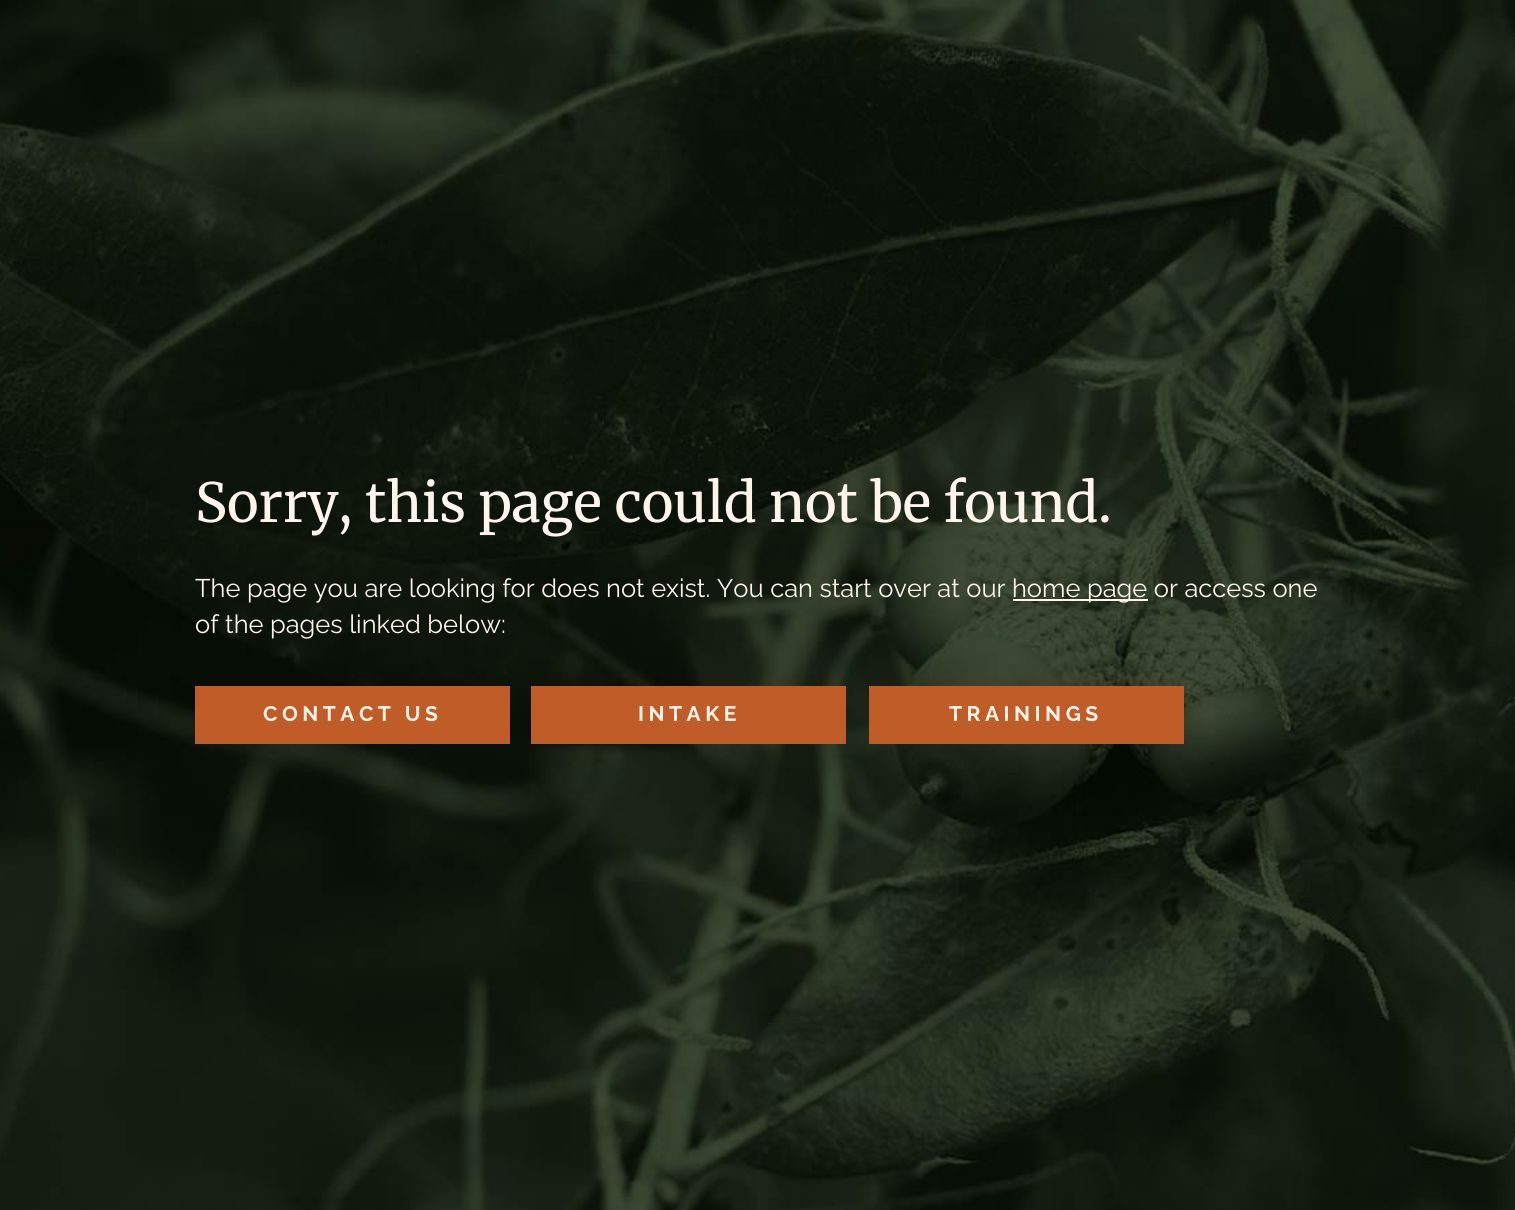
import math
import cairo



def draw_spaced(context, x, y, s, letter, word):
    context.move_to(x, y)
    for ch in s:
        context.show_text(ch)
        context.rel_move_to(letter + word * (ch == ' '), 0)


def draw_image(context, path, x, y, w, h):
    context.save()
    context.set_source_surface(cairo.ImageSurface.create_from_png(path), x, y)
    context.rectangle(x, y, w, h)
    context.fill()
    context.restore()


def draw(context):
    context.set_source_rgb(1, 1, 1)
    context.paint()
    draw_image(context, "images/1.png", 0, 0, 1515, 1210)
    context.set_source_rgb(1, 244 / 255, 235 / 255)
    context.rectangle(1013, 599, 135, 2)
    context.fill()
    context.set_source_rgb(191 / 255, 92 / 255, 39 / 255)
    context.rectangle(195, 686, 315, 58)
    context.fill()
    context.rectangle(531, 686, 315, 58)
    context.fill()
    context.rectangle(869, 686, 315, 58)
    context.fill()
    context.select_font_face("Merriweather Light")
    context.set_font_size(54)
    context.set_source_rgb(1, 244 / 255, 235 / 255)
    context.move_to(195, 522)
    context.show_text("Sorry, this page could not be found.")
    context.select_font_face("Raleway Thin")
    context.set_font_size(25.5)
    context.move_to(195, 597)
    context.show_text("The page you are looking for does not exist. You can start over at our")
    context.move_to(1012, 597)
    context.show_text("home page or access one")
    context.move_to(195, 633)
    context.show_text("of the pages linked below:")
    context.select_font_face("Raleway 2 Thin")
    context.set_font_size(21)
    draw_spaced(context, 263, 721, "CONTACT US", 4.5, 0)
    draw_spaced(context, 638, 721, "INTAKE", 4.5, 0)
    draw_spaced(context, 949, 721, "TRAININGS", 4.5, 0)


surface = cairo.ImageSurface(cairo.Format.RGB24, 1515, 1210)
context = cairo.Context(surface)
options = cairo.FontOptions()
options.set_hint_metrics(cairo.HintMetrics.OFF)
options.set_hint_style(cairo.HintStyle.NONE)
context.set_font_options(options)
context.set_miter_limit(4)
draw(context)
surface.write_to_png("out.png")
